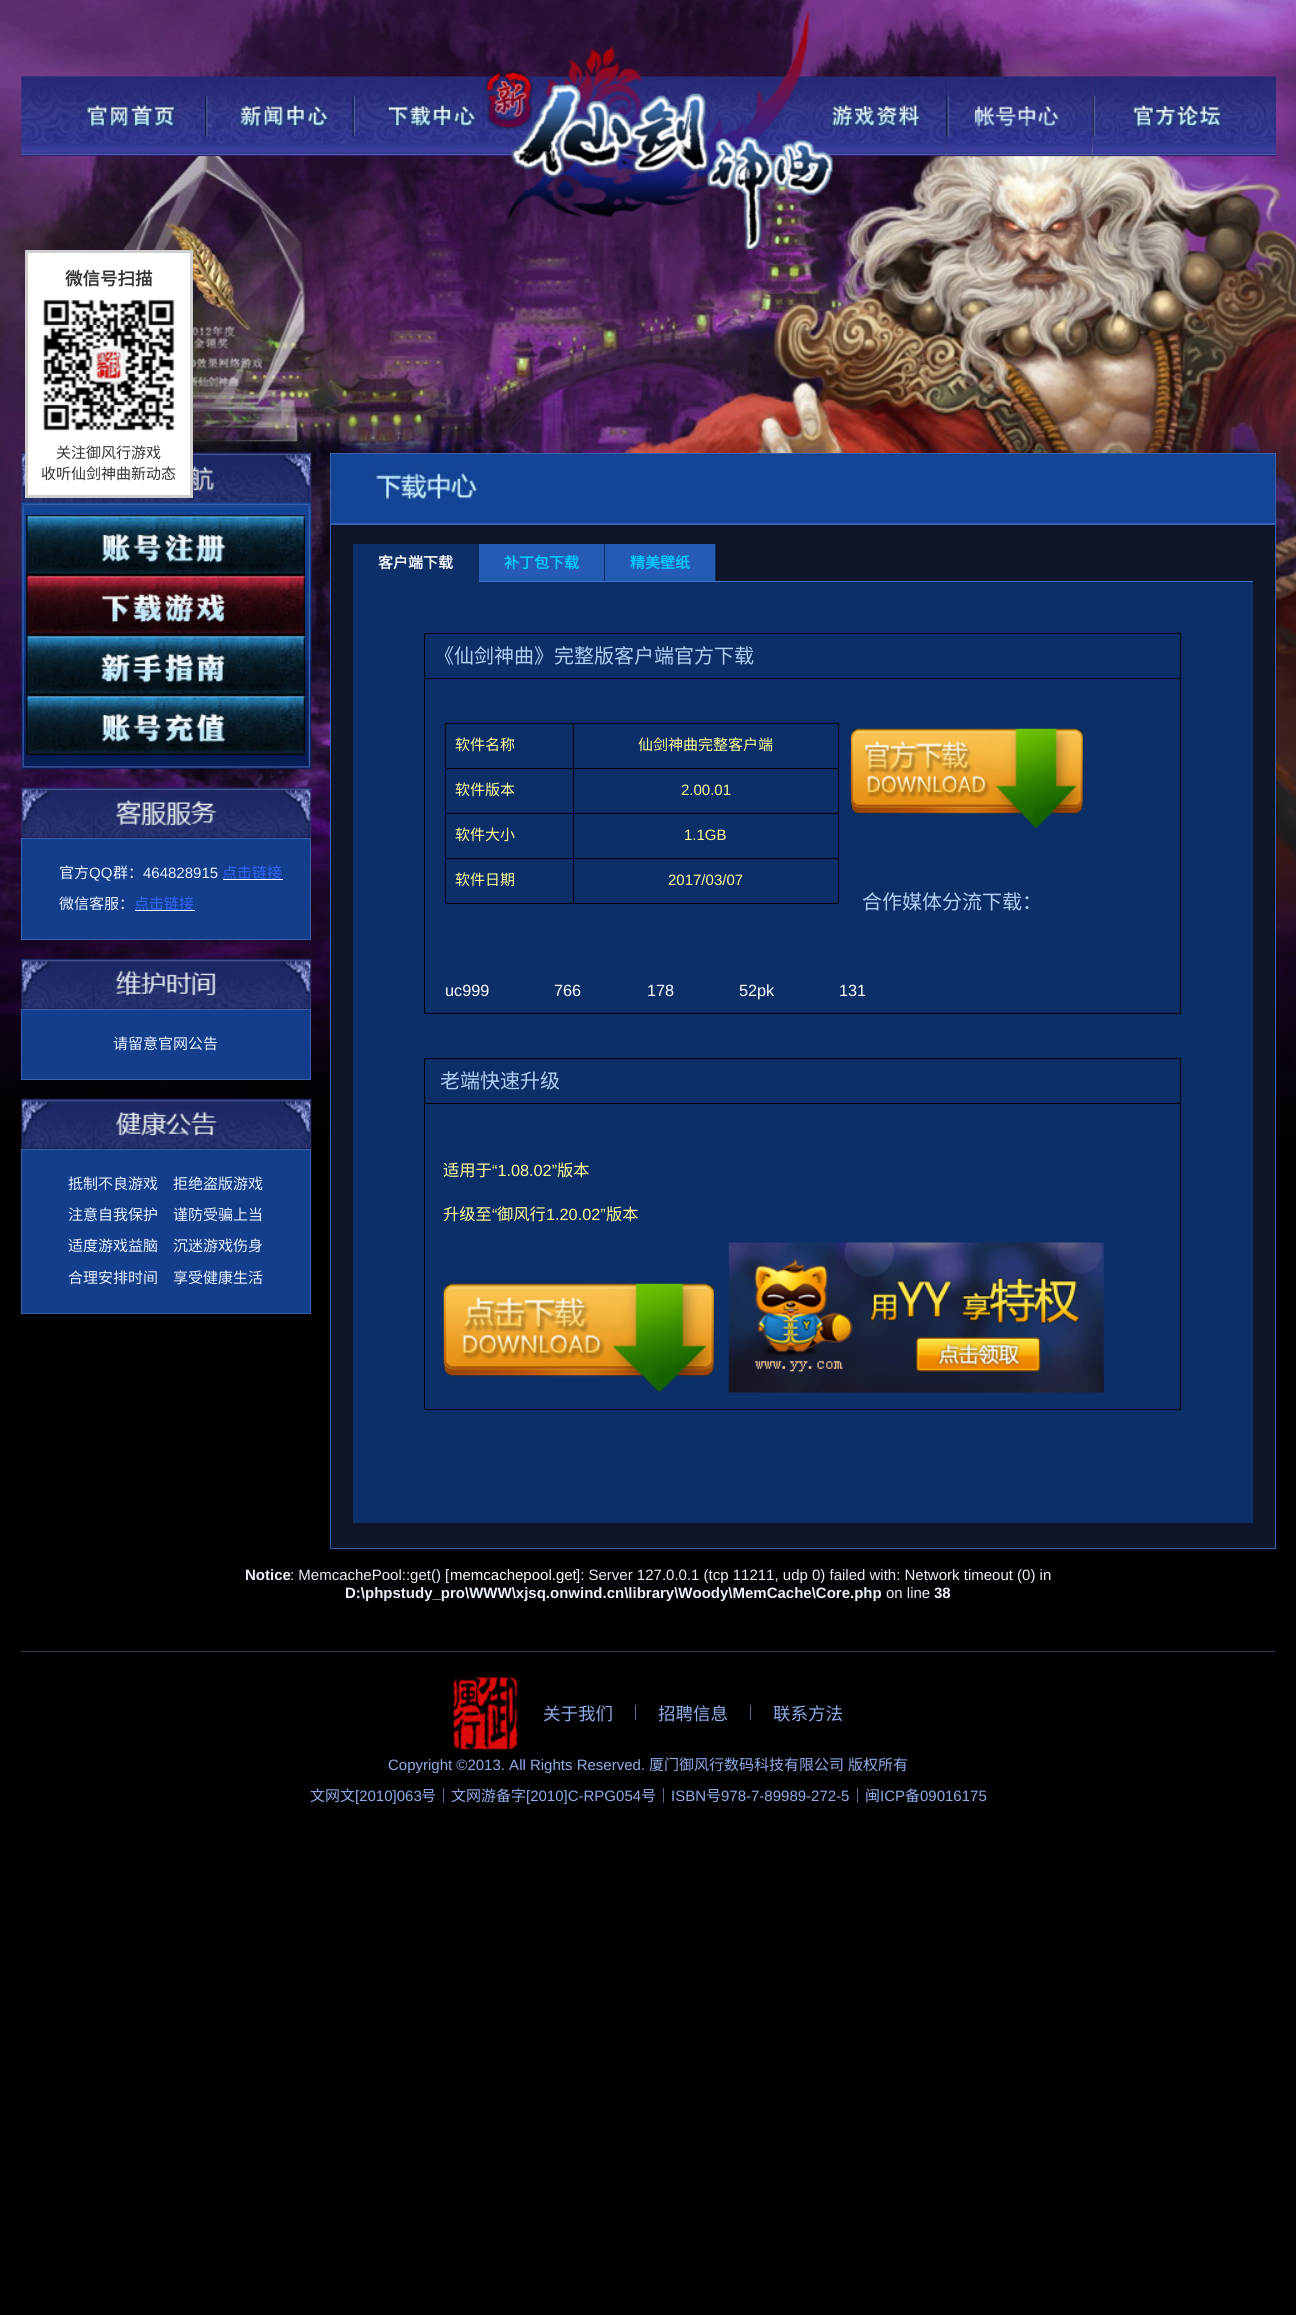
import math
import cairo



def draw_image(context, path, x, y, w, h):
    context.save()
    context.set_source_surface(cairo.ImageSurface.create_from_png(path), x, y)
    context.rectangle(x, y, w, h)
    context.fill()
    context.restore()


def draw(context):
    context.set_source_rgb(0, 0, 0)
    context.paint()
    draw_image(context, "images/1.png", 0, 0, 1296, 1139)
    draw_image(context, "images/5.png", 355, 76, 154, 81)
    draw_image(context, "images/6.png", 508, 76, 277, 81)
    draw_image(context, "images/7.png", 785, 76, 162, 81)
    draw_image(context, "images/2.png", 484, 9, 362, 241)
    draw_image(context, "images/3.png", 21, 76, 184, 81)
    draw_image(context, "images/4.png", 205, 76, 150, 81)
    draw_image(context, "images/8.png", 946, 76, 147, 81)
    draw_image(context, "images/9.png", 1092, 76, 185, 81)
    draw_image(context, "images/11.png", 21, 452, 291, 317)
    context.set_source_rgb(1, 1, 1)
    context.rectangle(26.5, 251.5, 165, 245)
    context.fill_preserve()
    context.set_source_rgb(206 / 255, 206 / 255, 206 / 255)
    context.set_line_width(3)
    context.stroke()
    draw_image(context, "images/10.png", 43, 299, 132, 132)
    draw_image(context, "images/12.png", 21, 787, 291, 51)
    context.set_source_rgb(18 / 255, 62 / 255, 140 / 255)
    context.rectangle(21.5, 838.5, 289, 101)
    context.fill_preserve()
    context.set_source_rgb(56 / 255, 98 / 255, 173 / 255)
    context.set_line_width(1)
    context.stroke()
    context.set_source_rgb(1, 1, 1)
    context.rectangle(223, 879, 60, 1)
    context.fill()
    context.set_source_rgb(233 / 255, 241 / 255, 1)
    context.rectangle(135, 910, 60, 1)
    context.fill()
    draw_image(context, "images/13.png", 21, 958, 291, 51)
    context.set_source_rgb(18 / 255, 62 / 255, 140 / 255)
    context.rectangle(21.5, 1009.5, 289, 70)
    context.fill_preserve()
    context.set_source_rgb(56 / 255, 98 / 255, 173 / 255)
    context.stroke()
    draw_image(context, "images/14.png", 21, 1098, 291, 51)
    context.set_source_rgb(18 / 255, 62 / 255, 140 / 255)
    context.rectangle(21.5, 1149.5, 289, 164)
    context.fill_preserve()
    context.set_source_rgb(56 / 255, 98 / 255, 173 / 255)
    context.stroke()
    context.set_source_rgb(20 / 255, 68 / 255, 150 / 255)
    context.rectangle(330.5, 453.5, 945, 70)
    context.fill_preserve()
    context.set_source_rgb(56 / 255, 98 / 255, 173 / 255)
    context.stroke()
    draw_image(context, "images/15.png", 371, 470, 110, 31)
    context.set_source_rgb(16 / 255, 22 / 255, 41 / 255)
    context.rectangle(330.5, 524.5, 945, 1024)
    context.fill_preserve()
    context.set_source_rgb(56 / 255, 98 / 255, 173 / 255)
    context.stroke()
    context.set_source_rgb(12 / 255, 47 / 255, 104 / 255)
    context.rectangle(353, 544, 126, 38)
    context.fill()
    context.set_source_rgb(37 / 255, 91 / 255, 178 / 255)
    context.rectangle(479, 544, 125, 37)
    context.fill()
    context.set_source_rgb(12 / 255, 47 / 255, 104 / 255)
    context.rectangle(604, 544, 1, 37)
    context.fill()
    context.set_source_rgb(37 / 255, 91 / 255, 178 / 255)
    context.rectangle(605, 544, 110, 37)
    context.fill()
    context.set_source_rgb(12 / 255, 47 / 255, 104 / 255)
    context.rectangle(715, 544, 1, 37)
    context.fill()
    context.rectangle(353, 582, 900, 941)
    context.fill()
    context.set_source_rgb(61 / 255, 114 / 255, 202 / 255)
    context.rectangle(479, 581, 774, 1)
    context.fill()
    context.set_source_rgb(0, 0, 0)
    context.rectangle(424, 633, 757, 1)
    context.fill()
    context.rectangle(1180, 678, 1, 336)
    context.fill()
    context.rectangle(1180, 633, 1, 46)
    context.fill()
    context.rectangle(424, 1013, 757, 1)
    context.fill()
    context.rectangle(424, 678, 1, 336)
    context.fill()
    context.rectangle(424, 678, 757, 1)
    context.fill()
    context.rectangle(424, 633, 1, 46)
    context.fill()
    context.rectangle(445, 723, 394, 1)
    context.fill()
    context.rectangle(838, 768, 1, 136)
    context.fill()
    context.rectangle(838, 723, 1, 46)
    context.fill()
    context.rectangle(573, 903, 266, 1)
    context.fill()
    context.rectangle(573, 858, 1, 46)
    context.fill()
    context.rectangle(573, 858, 266, 1)
    context.fill()
    context.rectangle(573, 813, 1, 46)
    context.fill()
    context.rectangle(573, 813, 266, 1)
    context.fill()
    context.rectangle(573, 768, 1, 46)
    context.fill()
    context.rectangle(573, 768, 266, 1)
    context.fill()
    context.rectangle(573, 723, 1, 46)
    context.fill()
    context.rectangle(445, 903, 129, 1)
    context.fill()
    context.rectangle(445, 858, 1, 46)
    context.fill()
    context.rectangle(445, 858, 129, 1)
    context.fill()
    context.rectangle(445, 813, 1, 46)
    context.fill()
    context.rectangle(445, 813, 129, 1)
    context.fill()
    context.rectangle(445, 768, 1, 46)
    context.fill()
    context.rectangle(445, 768, 129, 1)
    context.fill()
    context.rectangle(445, 723, 1, 46)
    context.fill()
    draw_image(context, "images/16.png", 851, 728, 232, 101)
    context.rectangle(424, 1058, 757, 1)
    context.fill()
    context.rectangle(1180, 1103, 1, 307)
    context.fill()
    context.rectangle(1180, 1058, 1, 46)
    context.fill()
    context.rectangle(424, 1409, 757, 1)
    context.fill()
    context.rectangle(424, 1103, 1, 307)
    context.fill()
    context.rectangle(424, 1103, 757, 1)
    context.fill()
    context.rectangle(424, 1058, 1, 46)
    context.fill()
    draw_image(context, "images/17.png", 443, 1283, 271, 110)
    draw_image(context, "images/18.png", 728, 1242, 376, 151)
    context.set_source_rgb(42 / 255, 53 / 255, 78 / 255)
    context.rectangle(21, 1651, 1255, 1)
    context.fill()
    draw_image(context, "images/19.png", 452, 1677, 66, 73)
    context.select_font_face("Noto Sans CJK SC", cairo.FontSlant.NORMAL, cairo.FontWeight.BOLD)
    context.set_font_size(17.5)
    context.set_source_rgb(51 / 255, 51 / 255, 51 / 255)
    context.move_to(65, 285)
    context.show_text("微信号扫描")
    context.select_font_face("Noto Sans CJK SC")
    context.set_font_size(15)
    context.move_to(56, 458)
    context.show_text("关注御风行游戏")
    context.move_to(41, 479)
    context.show_text("收听仙剑神曲新动态")
    context.set_source_rgb(233 / 255, 241 / 255, 1)
    context.move_to(59, 878)
    context.show_text("官方")
    context.select_font_face("Liberation Sans")
    context.move_to(89, 878)
    context.show_text("QQ")
    context.select_font_face("Noto Sans CJK SC")
    context.move_to(113, 878)
    context.show_text("群：")
    context.select_font_face("Liberation Sans")
    context.move_to(143, 878)
    context.show_text("464828915")
    context.select_font_face("Noto Sans CJK SC")
    context.set_source_rgb(51 / 255, 102 / 255, 1)
    context.move_to(222, 878)
    context.show_text("点击链接")
    context.set_source_rgb(233 / 255, 241 / 255, 1)
    context.move_to(59, 909)
    context.show_text("微信客服：")
    context.set_source_rgb(51 / 255, 102 / 255, 1)
    context.move_to(134, 909)
    context.show_text("点击链接")
    context.set_source_rgb(233 / 255, 241 / 255, 1)
    context.move_to(113, 1049)
    context.show_text("请留意官网公告")
    context.move_to(68, 1189)
    context.show_text("抵制不良游戏　拒绝盗版游戏")
    context.move_to(68, 1220)
    context.show_text("注意自我保护　谨防受骗上当")
    context.move_to(68, 1251)
    context.show_text("适度游戏益脑　沉迷游戏伤身")
    context.move_to(68, 1283)
    context.show_text("合理安排时间　享受健康生活")
    context.select_font_face("Noto Sans CJK SC", cairo.FontSlant.NORMAL, cairo.FontWeight.BOLD)
    context.set_source_rgb(1, 1, 1)
    context.move_to(378, 568)
    context.show_text("客户端下载")
    context.set_source_rgb(0, 204 / 255, 1)
    context.move_to(504, 568)
    context.show_text("补丁包下载")
    context.move_to(630, 568)
    context.show_text("精美壁纸")
    context.select_font_face("Noto Sans CJK SC")
    context.set_font_size(20)
    context.set_source_rgb(177 / 255, 207 / 255, 242 / 255)
    context.move_to(434, 663)
    context.show_text("《仙剑神曲》完整版客户端官方下载")
    context.set_font_size(15)
    context.set_source_rgb(1, 1, 153 / 255)
    context.move_to(455, 750)
    context.show_text("软件名称")
    context.move_to(638, 750)
    context.show_text("仙剑神曲完整客户端")
    context.move_to(455, 795)
    context.show_text("软件版本")
    context.select_font_face("Liberation Sans")
    context.move_to(681, 795)
    context.show_text("2.00.01")
    context.select_font_face("Noto Sans CJK SC")
    context.move_to(455, 840)
    context.show_text("软件大小")
    context.select_font_face("Liberation Sans")
    context.move_to(684, 840)
    context.show_text("1.1GB")
    context.select_font_face("Noto Sans CJK SC")
    context.move_to(455, 885)
    context.show_text("软件日期")
    context.select_font_face("Liberation Sans")
    context.move_to(668, 885)
    context.show_text("2017/03/07")
    context.select_font_face("Noto Sans CJK SC")
    context.set_font_size(20)
    context.set_source_rgb(177 / 255, 207 / 255, 242 / 255)
    context.move_to(862, 909)
    context.show_text("合作媒体分流下载：")
    context.select_font_face("Liberation Sans")
    context.set_font_size(16.25)
    context.set_source_rgb(1, 1, 1)
    context.move_to(445, 996)
    context.show_text("uc999")
    context.move_to(554, 996)
    context.show_text("766")
    context.move_to(647, 996)
    context.show_text("178")
    context.move_to(739, 996)
    context.show_text("52pk")
    context.move_to(839, 996)
    context.show_text("131")
    context.select_font_face("Noto Sans CJK SC")
    context.set_font_size(20)
    context.set_source_rgb(177 / 255, 207 / 255, 242 / 255)
    context.move_to(440, 1088)
    context.show_text("老端快速升级")
    context.set_font_size(16.25)
    context.set_source_rgb(1, 1, 153 / 255)
    context.move_to(443, 1176)
    context.show_text("适用于")
    context.select_font_face("Liberation Sans")
    context.move_to(492, 1176)
    context.show_text("“1.08.02”")
    context.select_font_face("Noto Sans CJK SC")
    context.move_to(557, 1176)
    context.show_text("版本")
    context.move_to(443, 1220)
    context.show_text("升级至")
    context.select_font_face("Liberation Sans")
    context.move_to(492, 1220)
    context.show_text("“")
    context.select_font_face("Noto Sans CJK SC")
    context.move_to(497, 1220)
    context.show_text("御风行")
    context.select_font_face("Liberation Sans")
    context.move_to(546, 1220)
    context.show_text("1.20.02”")
    context.select_font_face("Noto Sans CJK SC")
    context.move_to(606, 1220)
    context.show_text("版本")
    context.select_font_face("Liberation Sans", cairo.FontSlant.NORMAL, cairo.FontWeight.BOLD)
    context.set_font_size(15)
    context.set_source_rgb(233 / 255, 241 / 255, 1)
    context.move_to(245, 1580)
    context.show_text("Notice")
    context.select_font_face("Liberation Sans")
    context.move_to(290, 1580)
    context.show_text(": MemcachePool::get() [")
    context.set_source_rgb(1, 1, 1)
    context.move_to(450, 1580)
    context.show_text("memcachepool.get")
    context.set_source_rgb(233 / 255, 241 / 255, 1)
    context.move_to(576, 1580)
    context.show_text("]: Server 127.0.0.1 (tcp 11211, udp 0) failed with: Network timeout (0) in")
    context.select_font_face("Liberation Sans", cairo.FontSlant.NORMAL, cairo.FontWeight.BOLD)
    context.move_to(345, 1598)
    context.show_text("D:\\phpstudy_pro\\WWW\\xjsq.onwind.cn\\library\\Woody\\MemCache\\Core.php")
    context.select_font_face("Liberation Sans")
    context.move_to(886, 1598)
    context.show_text("on line")
    context.select_font_face("Liberation Sans", cairo.FontSlant.NORMAL, cairo.FontWeight.BOLD)
    context.move_to(934, 1598)
    context.show_text("38")
    context.select_font_face("Noto Sans CJK SC")
    context.set_font_size(17.5)
    context.set_source_rgb(143 / 255, 172 / 255, 235 / 255)
    context.move_to(543, 1720)
    context.show_text("关于我们")
    context.set_font_size(15)
    context.move_to(628, 1718)
    context.show_text("｜")
    context.set_font_size(17.5)
    context.move_to(658, 1720)
    context.show_text("招聘信息")
    context.set_font_size(15)
    context.move_to(743, 1718)
    context.show_text("｜")
    context.set_font_size(17.5)
    context.move_to(773, 1720)
    context.show_text("联系方法")
    context.select_font_face("Liberation Sans")
    context.set_font_size(15)
    context.move_to(388, 1770)
    context.show_text("Copyright ©2013. All Rights Reserved.")
    context.select_font_face("Noto Sans CJK SC")
    context.move_to(649, 1770)
    context.show_text("厦门御风行数码科技有限公司")
    context.move_to(848, 1770)
    context.show_text("版权所有")
    context.move_to(310, 1801)
    context.show_text("文网文")
    context.select_font_face("Liberation Sans")
    context.move_to(355, 1801)
    context.show_text("[2010]063")
    context.select_font_face("Noto Sans CJK SC")
    context.move_to(421, 1801)
    context.show_text("号｜文网游备字")
    context.select_font_face("Liberation Sans")
    context.move_to(526, 1801)
    context.show_text("[2010]C-RPG054")
    context.select_font_face("Noto Sans CJK SC")
    context.move_to(641, 1801)
    context.show_text("号｜")
    context.select_font_face("Liberation Sans")
    context.move_to(671, 1801)
    context.show_text("ISBN")
    context.select_font_face("Noto Sans CJK SC")
    context.move_to(706, 1801)
    context.show_text("号")
    context.select_font_face("Liberation Sans")
    context.move_to(721, 1801)
    context.show_text("978-7-89989-272-5")
    context.select_font_face("Noto Sans CJK SC")
    context.move_to(850, 1801)
    context.show_text("｜闽")
    context.select_font_face("Liberation Sans")
    context.move_to(880, 1801)
    context.show_text("ICP")
    context.select_font_face("Noto Sans CJK SC")
    context.move_to(905, 1801)
    context.show_text("备")
    context.select_font_face("Liberation Sans")
    context.move_to(920, 1801)
    context.show_text("09016175")


surface = cairo.ImageSurface(cairo.Format.RGB24, 1296, 2315)
context = cairo.Context(surface)
options = cairo.FontOptions()
options.set_hint_metrics(cairo.HintMetrics.OFF)
options.set_hint_style(cairo.HintStyle.NONE)
context.set_font_options(options)
context.set_miter_limit(4)
draw(context)
surface.write_to_png("out.png")
